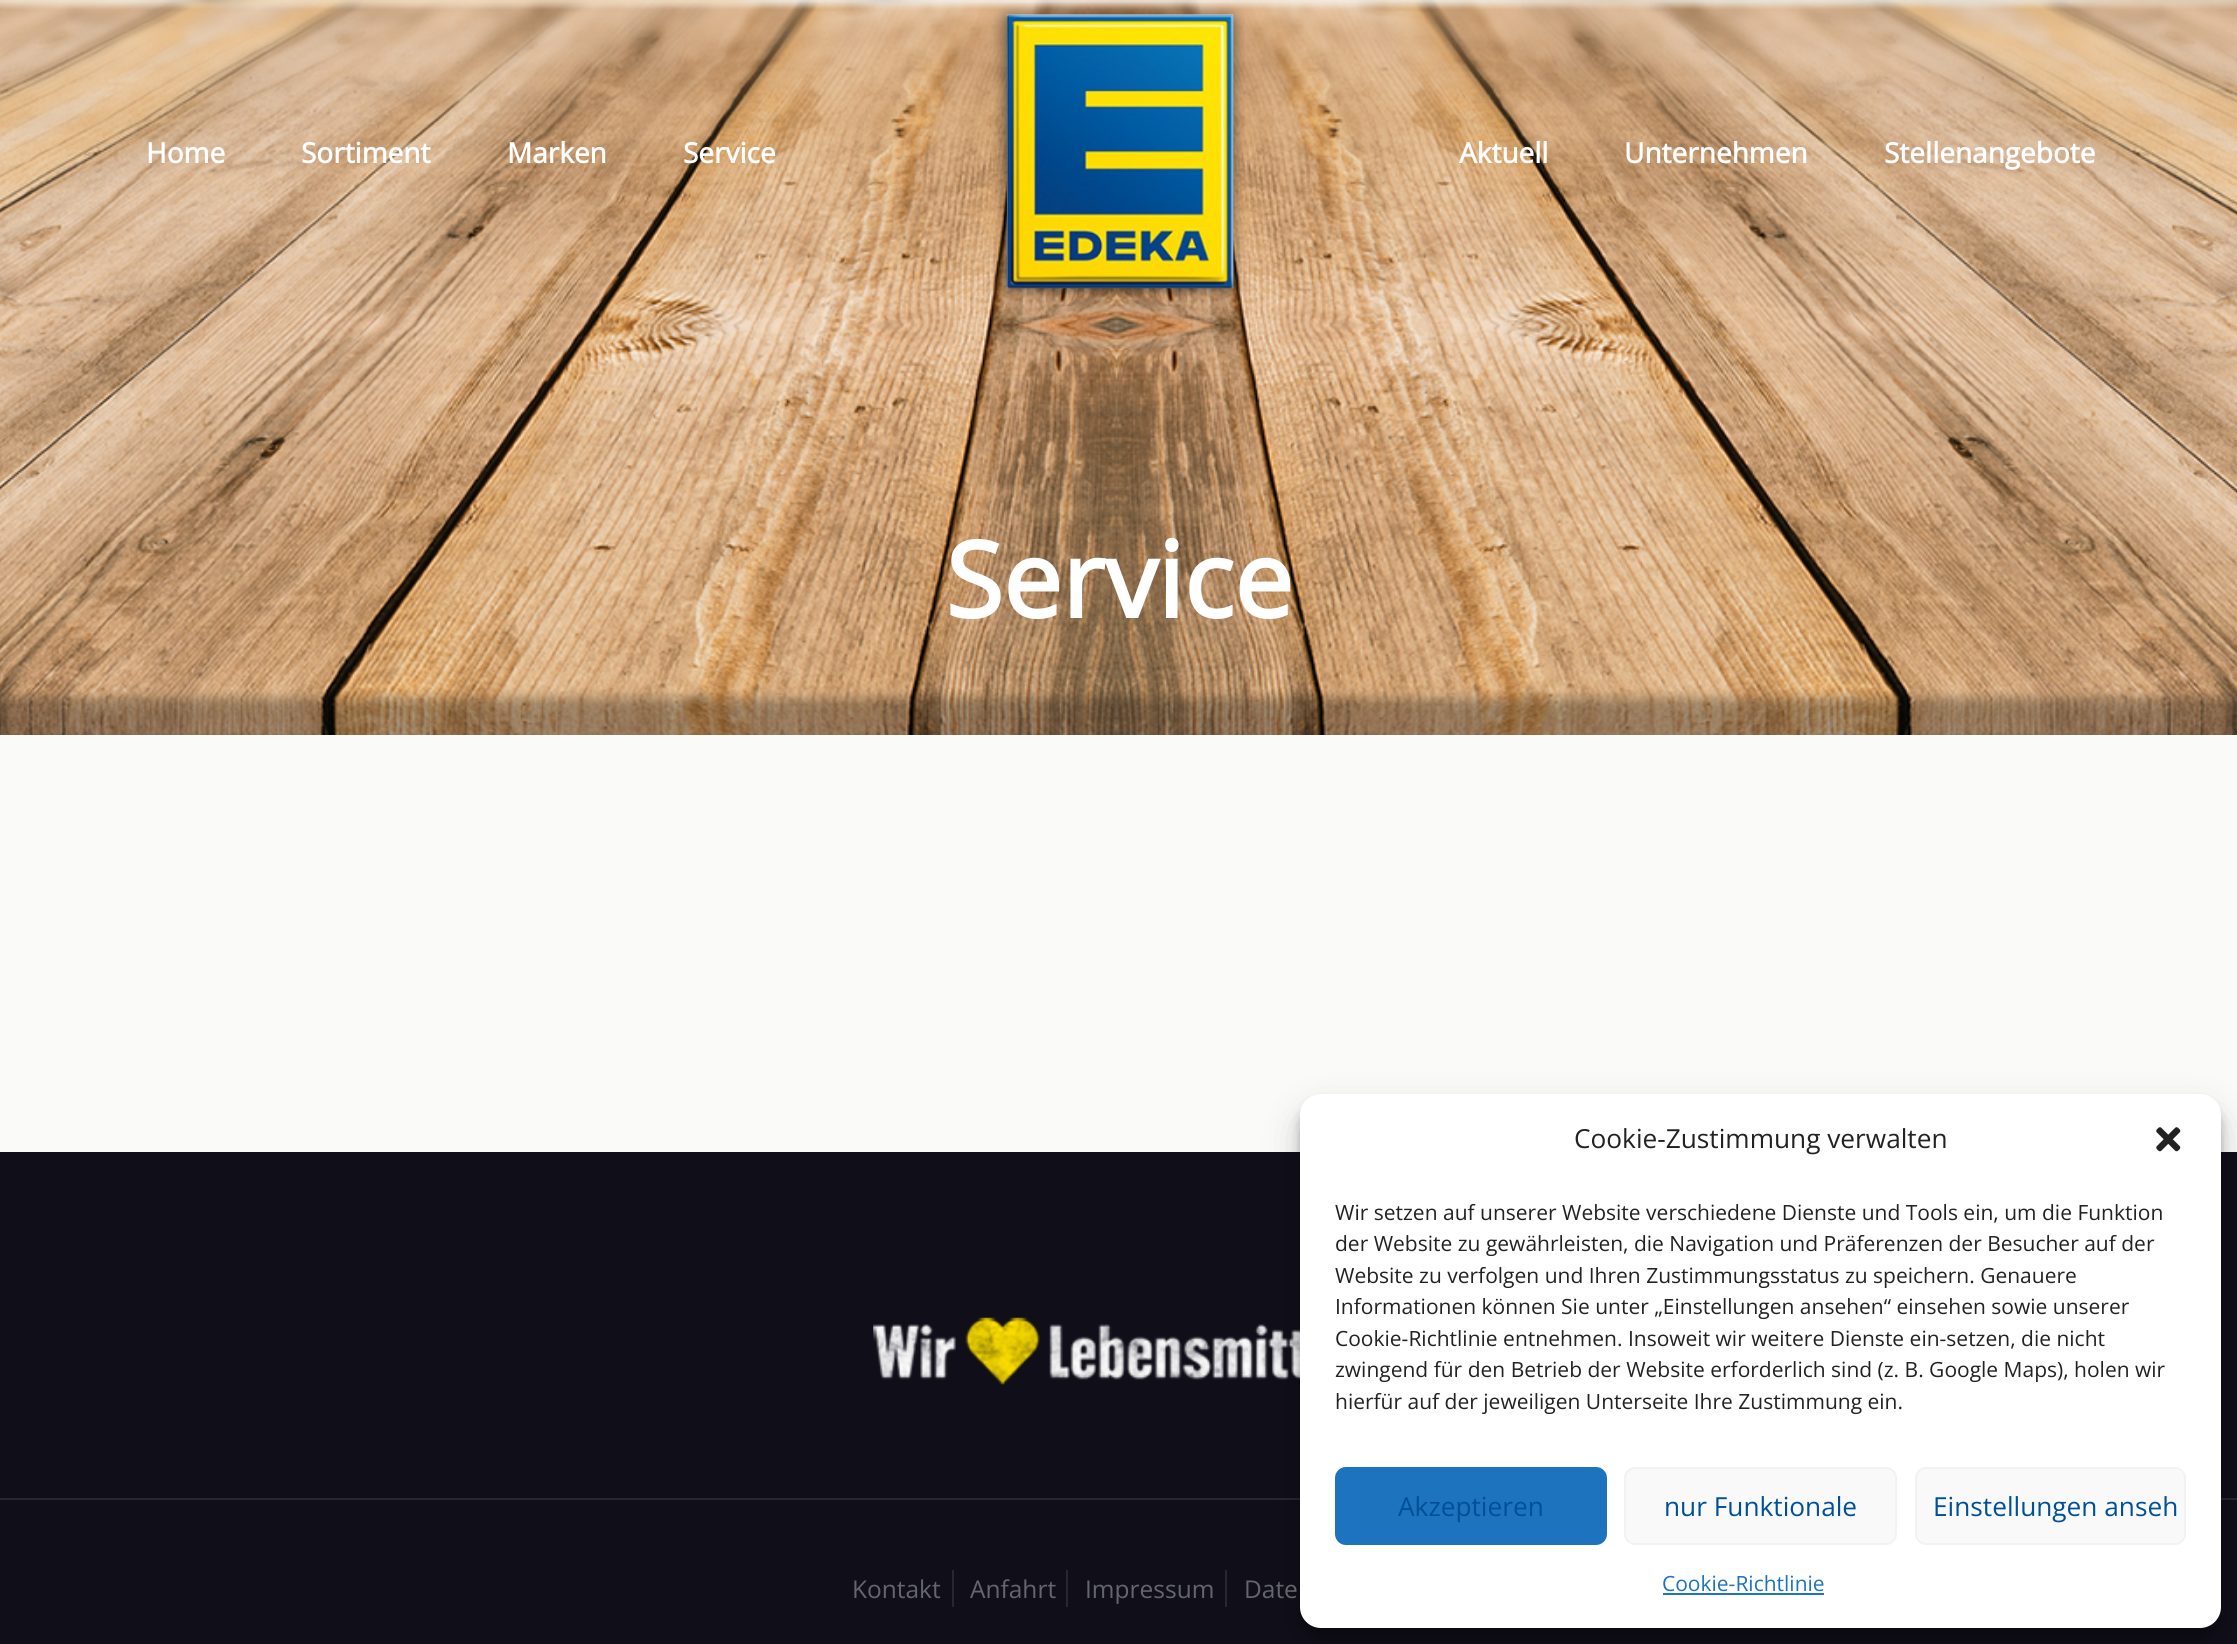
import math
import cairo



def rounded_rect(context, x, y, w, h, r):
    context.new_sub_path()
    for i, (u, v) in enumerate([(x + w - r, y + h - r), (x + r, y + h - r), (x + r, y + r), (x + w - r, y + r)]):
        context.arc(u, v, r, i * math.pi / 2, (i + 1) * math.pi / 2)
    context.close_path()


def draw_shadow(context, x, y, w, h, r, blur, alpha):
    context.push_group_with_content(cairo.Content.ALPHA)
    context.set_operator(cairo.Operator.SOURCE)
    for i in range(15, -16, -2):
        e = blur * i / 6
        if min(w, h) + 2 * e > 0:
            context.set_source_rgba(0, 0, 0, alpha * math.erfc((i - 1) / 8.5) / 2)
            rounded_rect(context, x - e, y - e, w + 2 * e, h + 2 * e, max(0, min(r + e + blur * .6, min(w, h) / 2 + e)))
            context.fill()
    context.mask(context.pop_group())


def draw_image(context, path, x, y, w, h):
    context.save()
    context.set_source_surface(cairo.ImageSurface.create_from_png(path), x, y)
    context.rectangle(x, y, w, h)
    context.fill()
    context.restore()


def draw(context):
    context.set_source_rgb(250 / 255, 250 / 255, 249 / 255)
    context.paint()
    draw_image(context, "images/1.png", 0, 0, 2237, 735)
    draw_image(context, "images/2.png", 993, 3, 252, 299)
    context.set_source_rgb(16 / 255, 15 / 255, 25 / 255)
    context.rectangle(0, 1152, 2237, 492)
    context.fill()
    draw_image(context, "images/3.png", 873, 1317, 427, 68)
    context.set_source_rgb(40 / 255, 39 / 255, 48 / 255)
    context.rectangle(0, 1498, 2237, 2)
    context.fill()
    context.rectangle(952, 1570, 2, 37)
    context.fill()
    context.rectangle(1066, 1570, 2, 37)
    context.fill()
    context.rectangle(1225, 1570, 2, 37)
    context.fill()
    context.set_source_rgb(0, 0, 0)
    draw_shadow(context, 1300, 1104, 921, 534, 21, 5, 0.23)
    draw_shadow(context, 1300, 1111, 921, 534, 21, 17.5, 0.19)
    context.set_source_rgb(1, 1, 1)
    rounded_rect(context, 1300, 1094, 921, 534, 21)
    context.fill()
    draw_image(context, "images/4.png", 2156, 1127, 25, 25)
    context.set_source_rgb(30 / 255, 115 / 255, 190 / 255)
    rounded_rect(context, 1336, 1468, 270, 76, 10)
    context.fill_preserve()
    context.stroke()
    context.set_source_rgb(249 / 255, 249 / 255, 249 / 255)
    rounded_rect(context, 1625, 1468, 271, 76, 10)
    context.fill_preserve()
    context.set_source_rgb(242 / 255, 242 / 255, 242 / 255)
    context.stroke()
    context.set_source_rgb(249 / 255, 249 / 255, 249 / 255)
    rounded_rect(context, 1916, 1468, 269, 76, 10)
    context.fill_preserve()
    context.set_source_rgb(242 / 255, 242 / 255, 242 / 255)
    context.stroke()
    context.set_source_rgb(30 / 255, 115 / 255, 190 / 255)
    context.rectangle(1663, 1593, 161, 2)
    context.fill()
    context.select_font_face("Open Sans", cairo.FontSlant.NORMAL, cairo.FontWeight.BOLD)
    context.set_font_size(28)
    context.set_source_rgb(1, 1, 1)
    context.move_to(146, 163)
    context.show_text("Home")
    context.move_to(301, 163)
    context.show_text("Sortiment")
    context.move_to(507, 163)
    context.show_text("Marken")
    context.move_to(683, 163)
    context.show_text("Service")
    context.move_to(1459, 163)
    context.show_text("Aktuell")
    context.move_to(1624, 163)
    context.show_text("Unternehmen")
    context.move_to(1884, 163)
    context.show_text("Stellenangebote")
    context.set_font_size(105)
    context.move_to(945, 618)
    context.show_text("Service")
    context.select_font_face("Open Sans")
    context.set_font_size(24.5)
    context.set_source_rgb(101 / 255, 102 / 255, 108 / 255)
    context.move_to(852, 1598)
    context.show_text("Kontakt")
    context.move_to(970, 1598)
    context.show_text("Anfahrt")
    context.move_to(1085, 1598)
    context.show_text("Impressum")
    context.move_to(1244, 1598)
    context.show_text("Date")
    context.set_font_size(26.25)
    context.set_source_rgb(34 / 255, 34 / 255, 34 / 255)
    context.move_to(1574, 1148)
    context.show_text("Cookie-Zustimmung verwalten")
    context.set_font_size(21)
    context.move_to(1335, 1220)
    context.show_text("Wir setzen auf unserer Website verschiedene Dienste und Tools ein, um die Funktion")
    context.move_to(1335, 1251)
    context.show_text("der Website zu gewährleisten, die Navigation und Präferenzen der Besucher auf der")
    context.move_to(1335, 1283)
    context.show_text("Website zu verfolgen und Ihren Zustimmungsstatus zu speichern. Genauere")
    context.move_to(1335, 1314)
    context.show_text("Informationen können Sie unter „Einstellungen ansehen“ einsehen sowie unserer")
    context.move_to(1335, 1346)
    context.show_text("Cookie-Richtlinie entnehmen. Insoweit wir weitere Dienste ein-setzen, die nicht")
    context.move_to(1335, 1377)
    context.show_text("zwingend für den Betrieb der Website erforderlich sind (z. B. Google Maps), holen wir")
    context.move_to(1335, 1409)
    context.show_text("hierfür auf der jeweiligen Unterseite Ihre Zustimmung ein.")
    context.set_font_size(26.25)
    context.set_source_rgb(0, 80 / 255, 153 / 255)
    context.move_to(1398, 1516)
    context.show_text("Akzeptieren")
    context.move_to(1664, 1516)
    context.show_text("nur Funktionale")
    context.move_to(1933, 1516)
    context.show_text("Einstellungen anseh")
    context.set_font_size(21)
    context.set_source_rgb(30 / 255, 115 / 255, 190 / 255)
    context.move_to(1662, 1591)
    context.show_text("Cookie-Richtlinie")


surface = cairo.ImageSurface(cairo.Format.RGB24, 2237, 1644)
context = cairo.Context(surface)
options = cairo.FontOptions()
options.set_hint_metrics(cairo.HintMetrics.OFF)
options.set_hint_style(cairo.HintStyle.NONE)
context.set_font_options(options)
context.set_miter_limit(4)
draw(context)
surface.write_to_png("out.png")
